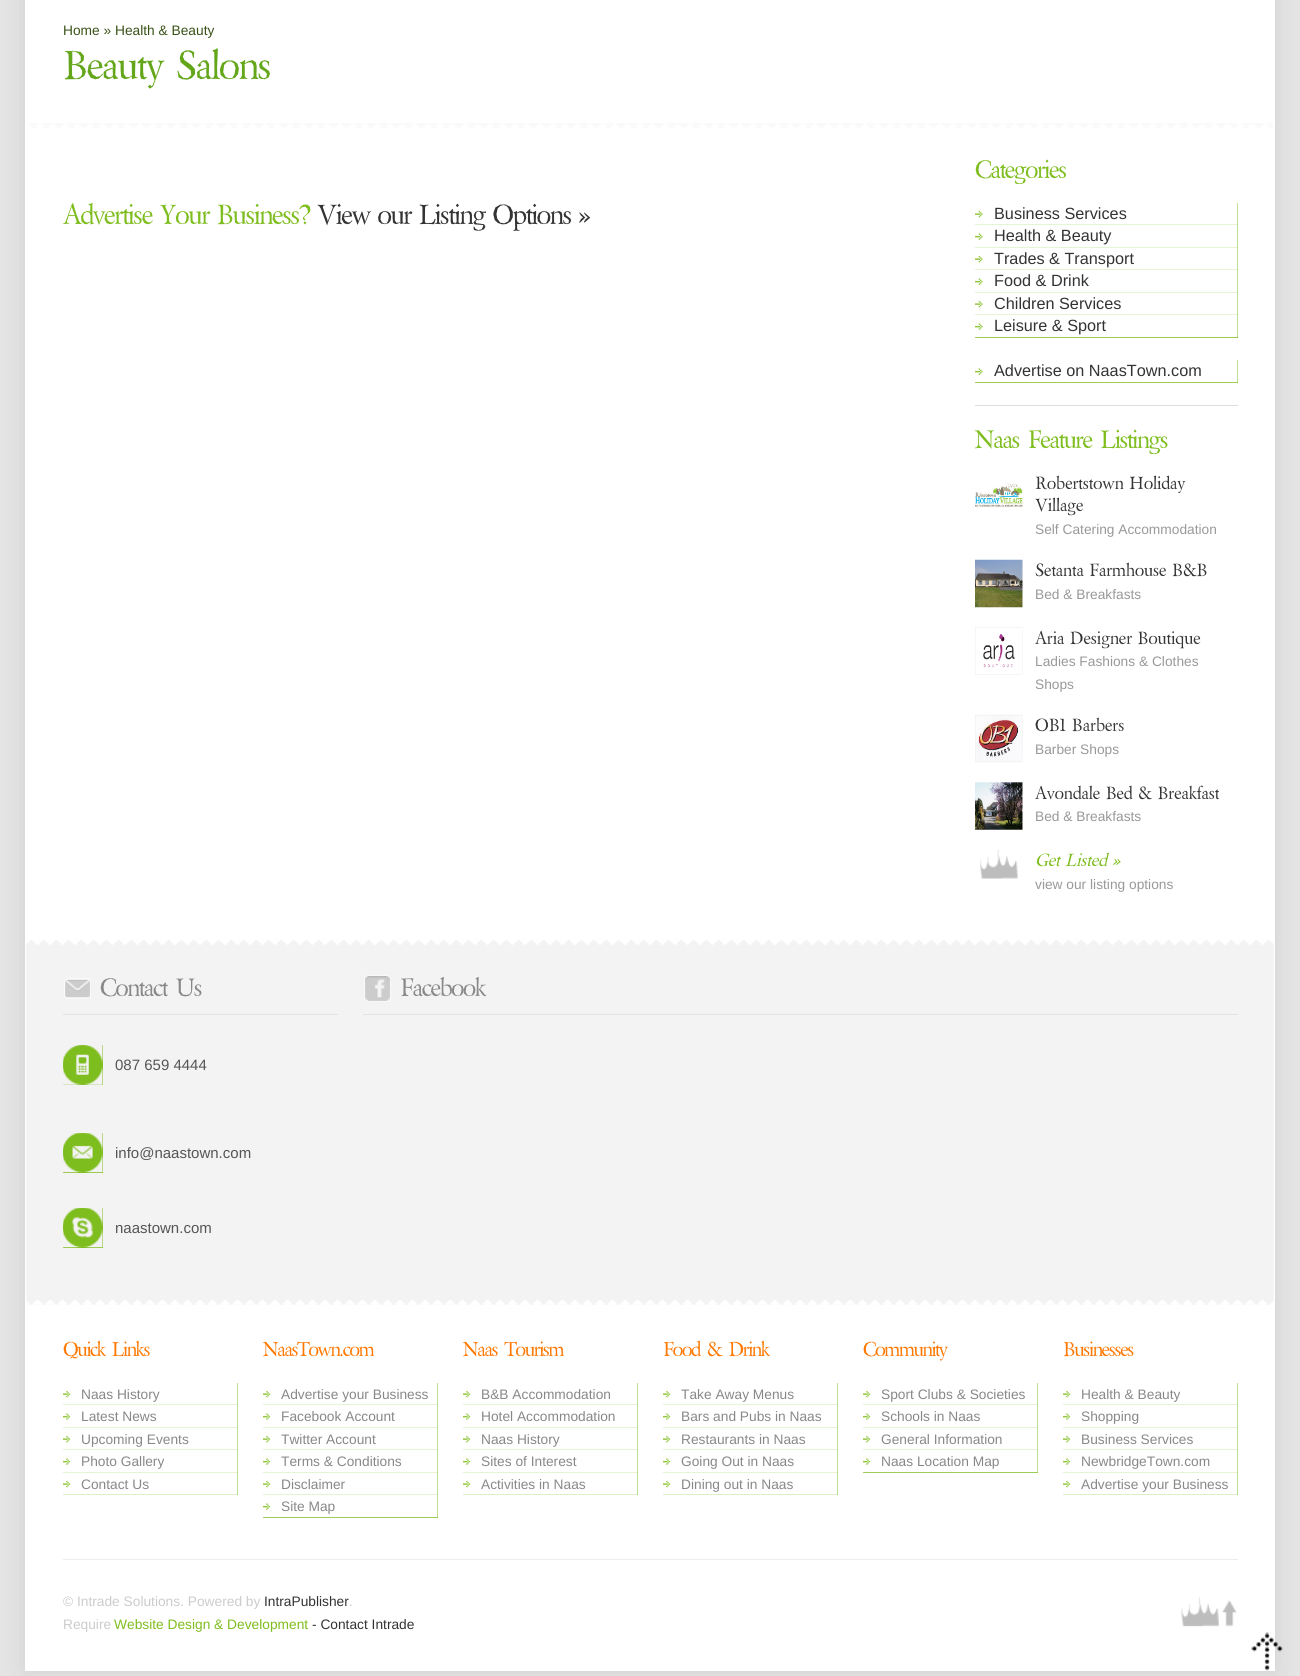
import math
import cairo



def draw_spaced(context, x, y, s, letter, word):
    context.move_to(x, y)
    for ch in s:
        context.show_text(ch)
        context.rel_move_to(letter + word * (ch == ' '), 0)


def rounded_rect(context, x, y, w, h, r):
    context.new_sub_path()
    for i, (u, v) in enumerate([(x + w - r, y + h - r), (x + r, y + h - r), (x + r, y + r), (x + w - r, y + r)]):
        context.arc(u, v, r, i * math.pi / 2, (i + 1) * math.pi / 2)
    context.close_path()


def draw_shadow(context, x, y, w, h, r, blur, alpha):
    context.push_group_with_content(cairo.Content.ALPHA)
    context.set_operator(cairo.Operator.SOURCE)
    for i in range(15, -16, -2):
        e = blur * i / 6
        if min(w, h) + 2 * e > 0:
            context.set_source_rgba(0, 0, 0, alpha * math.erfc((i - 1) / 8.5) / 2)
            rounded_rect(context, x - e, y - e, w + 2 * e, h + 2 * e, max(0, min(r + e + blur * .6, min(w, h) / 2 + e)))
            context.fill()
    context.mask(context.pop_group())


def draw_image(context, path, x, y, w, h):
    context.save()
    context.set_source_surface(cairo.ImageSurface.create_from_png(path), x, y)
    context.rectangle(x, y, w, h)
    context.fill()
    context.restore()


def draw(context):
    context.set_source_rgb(229 / 255, 229 / 255, 229 / 255)
    context.paint()
    context.set_source_rgb(0, 0, 0)
    draw_shadow(context, 25, -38, 1250, 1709, 0, 12.5, 0.1)
    context.set_source_rgb(1, 1, 1)
    context.rectangle(25, 0, 1250, 1671)
    context.fill()
    draw_image(context, "images/1.png", 27, 123, 1246, 5)
    context.set_source_rgb(221 / 255, 221 / 255, 221 / 255)
    context.rectangle(975, 405, 263, 1)
    context.fill()
    context.set_source_rgb(126 / 255, 189 / 255, 30 / 255)
    context.rectangle(975, 203, 263, 135)
    context.fill()
    draw_image(context, "images/2.png", 975, 203, 263, 22)
    draw_image(context, "images/3.png", 975, 224, 263, 24)
    draw_image(context, "images/4.png", 975, 247, 263, 23)
    draw_image(context, "images/3.png", 975, 269, 263, 24)
    draw_image(context, "images/4.png", 975, 292, 263, 23)
    draw_image(context, "images/3.png", 975, 314, 263, 24)
    context.rectangle(975, 360, 263, 23)
    context.fill()
    draw_image(context, "images/5.png", 975, 360, 263, 23)
    draw_image(context, "images/6.png", 975, 483, 48, 25)
    draw_image(context, "images/7.png", 975, 559, 48, 49)
    draw_image(context, "images/8.png", 975, 627, 48, 48)
    draw_image(context, "images/9.png", 975, 714, 48, 49)
    draw_image(context, "images/10.png", 975, 782, 48, 48)
    draw_image(context, "images/11.png", 980, 849, 38, 30)
    draw_image(context, "images/12.png", 26, 940, 1248, 365)
    draw_image(context, "images/13.png", 26, 1300, 1248, 5)
    draw_image(context, "images/14.png", 64, 978, 27, 21)
    context.set_source_rgb(227 / 255, 227 / 255, 227 / 255)
    context.rectangle(63, 1014, 275, 1)
    context.fill()
    context.set_source_rgb(126 / 255, 189 / 255, 30 / 255)
    context.rectangle(63, 1045, 40, 40)
    context.fill()
    draw_image(context, "images/15.png", 63, 1045, 40, 40)
    context.rectangle(63, 1133, 40, 40)
    context.fill()
    draw_image(context, "images/16.png", 63, 1133, 40, 40)
    context.rectangle(63, 1208, 40, 40)
    context.fill()
    draw_image(context, "images/17.png", 63, 1208, 40, 40)
    draw_image(context, "images/18.png", 364, 975, 27, 27)
    context.set_source_rgb(227 / 255, 227 / 255, 227 / 255)
    context.rectangle(363, 1014, 875, 1)
    context.fill()
    context.set_source_rgb(126 / 255, 189 / 255, 30 / 255)
    context.rectangle(63, 1383, 175, 112)
    context.fill()
    draw_image(context, "images/19.png", 63, 1383, 175, 22)
    draw_image(context, "images/20.png", 63, 1404, 175, 24)
    draw_image(context, "images/21.png", 63, 1427, 175, 23)
    draw_image(context, "images/20.png", 63, 1449, 175, 24)
    draw_image(context, "images/21.png", 63, 1472, 175, 23)
    context.rectangle(263, 1383, 175, 135)
    context.fill()
    draw_image(context, "images/19.png", 263, 1383, 175, 22)
    draw_image(context, "images/20.png", 263, 1404, 175, 24)
    draw_image(context, "images/21.png", 263, 1427, 175, 23)
    draw_image(context, "images/20.png", 263, 1449, 175, 24)
    draw_image(context, "images/21.png", 263, 1472, 175, 23)
    draw_image(context, "images/20.png", 263, 1494, 175, 24)
    context.rectangle(463, 1383, 175, 112)
    context.fill()
    draw_image(context, "images/22.png", 463, 1383, 175, 22)
    draw_image(context, "images/23.png", 463, 1404, 175, 24)
    draw_image(context, "images/24.png", 463, 1427, 175, 23)
    draw_image(context, "images/23.png", 463, 1449, 175, 24)
    draw_image(context, "images/24.png", 463, 1472, 175, 23)
    context.rectangle(663, 1383, 175, 112)
    context.fill()
    draw_image(context, "images/22.png", 663, 1383, 175, 22)
    draw_image(context, "images/23.png", 663, 1404, 175, 24)
    draw_image(context, "images/24.png", 663, 1427, 175, 23)
    draw_image(context, "images/23.png", 663, 1449, 175, 24)
    draw_image(context, "images/24.png", 663, 1472, 175, 23)
    context.rectangle(863, 1383, 175, 90)
    context.fill()
    draw_image(context, "images/22.png", 863, 1383, 175, 22)
    draw_image(context, "images/23.png", 863, 1404, 175, 24)
    draw_image(context, "images/24.png", 863, 1427, 175, 23)
    draw_image(context, "images/23.png", 863, 1449, 175, 24)
    context.rectangle(1063, 1383, 175, 112)
    context.fill()
    draw_image(context, "images/19.png", 1063, 1383, 175, 22)
    draw_image(context, "images/20.png", 1063, 1404, 175, 24)
    draw_image(context, "images/21.png", 1063, 1427, 175, 23)
    draw_image(context, "images/20.png", 1063, 1449, 175, 24)
    draw_image(context, "images/21.png", 1063, 1472, 175, 23)
    context.set_source_rgb(238 / 255, 238 / 255, 238 / 255)
    context.rectangle(63, 1559, 1175, 1)
    context.fill()
    draw_image(context, "images/25.png", 1181, 1597, 56, 30)
    draw_image(context, "images/26.png", 1251, 1632, 32, 39)
    context.select_font_face("Liberation Sans")
    context.set_font_size(13.75)
    context.set_source_rgb(57 / 255, 82 / 255, 24 / 255)
    context.move_to(63, 35)
    context.show_text("Home » Health & Beauty")
    context.select_font_face("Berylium")
    context.set_font_size(40)
    context.set_source_rgb(100 / 255, 166 / 255, 25 / 255)
    draw_spaced(context, 63, 79, "Beauty Salons", -1.25, 2)
    context.set_font_size(27.5)
    context.set_source_rgb(126 / 255, 189 / 255, 30 / 255)
    draw_spaced(context, 63, 224, "Advertise Your Business?", -1.25, 0)
    context.set_source_rgb(51 / 255, 51 / 255, 51 / 255)
    draw_spaced(context, 317, 224, "View our Listing Options »", -1.25, 0)
    context.set_font_size(25)
    context.set_source_rgb(126 / 255, 189 / 255, 30 / 255)
    draw_spaced(context, 975, 178, "Categories", -1.25, 0)
    context.select_font_face("Liberation Sans")
    context.set_font_size(16.25)
    context.set_source_rgb(51 / 255, 51 / 255, 51 / 255)
    context.move_to(994, 219)
    context.show_text("Business Services")
    context.move_to(994, 241)
    context.show_text("Health & Beauty")
    context.move_to(994, 264)
    context.show_text("Trades & Transport")
    context.move_to(994, 286)
    context.show_text("Food & Drink")
    context.move_to(994, 309)
    context.show_text("Children Services")
    context.move_to(994, 331)
    context.show_text("Leisure & Sport")
    context.move_to(994, 376)
    context.show_text("Advertise on NaasTown.com")
    context.select_font_face("Berylium")
    context.set_font_size(25)
    context.set_source_rgb(126 / 255, 189 / 255, 30 / 255)
    draw_spaced(context, 975, 448, "Naas Feature Listings", -1.25, 2)
    context.set_font_size(17.5)
    context.set_source_rgb(51 / 255, 51 / 255, 51 / 255)
    context.move_to(1035, 489)
    context.show_text("Robertstown Holiday")
    context.move_to(1035, 511)
    context.show_text("Village")
    context.select_font_face("Liberation Sans")
    context.set_font_size(13.75)
    context.set_source_rgb(153 / 255, 153 / 255, 153 / 255)
    context.move_to(1035, 534)
    context.show_text("Self Catering Accommodation")
    context.select_font_face("Berylium")
    context.set_font_size(17.5)
    context.set_source_rgb(51 / 255, 51 / 255, 51 / 255)
    context.move_to(1035, 576)
    context.show_text("Setanta Farmhouse B&B")
    context.select_font_face("Liberation Sans")
    context.set_font_size(13.75)
    context.set_source_rgb(153 / 255, 153 / 255, 153 / 255)
    context.move_to(1035, 599)
    context.show_text("Bed & Breakfasts")
    context.select_font_face("Berylium")
    context.set_font_size(17.5)
    context.set_source_rgb(51 / 255, 51 / 255, 51 / 255)
    context.move_to(1035, 644)
    context.show_text("Aria Designer Boutique")
    context.select_font_face("Liberation Sans")
    context.set_font_size(13.75)
    context.set_source_rgb(153 / 255, 153 / 255, 153 / 255)
    context.move_to(1035, 666)
    context.show_text("Ladies Fashions & Clothes")
    context.move_to(1035, 689)
    context.show_text("Shops")
    context.select_font_face("Berylium")
    context.set_font_size(17.5)
    context.set_source_rgb(51 / 255, 51 / 255, 51 / 255)
    context.move_to(1035, 731)
    context.show_text("OB1 Barbers")
    context.select_font_face("Liberation Sans")
    context.set_font_size(13.75)
    context.set_source_rgb(153 / 255, 153 / 255, 153 / 255)
    context.move_to(1035, 754)
    context.show_text("Barber Shops")
    context.select_font_face("Berylium")
    context.set_font_size(17.5)
    context.set_source_rgb(51 / 255, 51 / 255, 51 / 255)
    context.move_to(1035, 799)
    context.show_text("Avondale Bed & Breakfast")
    context.select_font_face("Liberation Sans")
    context.set_font_size(13.75)
    context.set_source_rgb(153 / 255, 153 / 255, 153 / 255)
    context.move_to(1035, 821)
    context.show_text("Bed & Breakfasts")
    context.select_font_face("Berylium", cairo.FontSlant.ITALIC)
    context.set_font_size(17.5)
    context.set_source_rgb(126 / 255, 189 / 255, 30 / 255)
    context.move_to(1035, 866)
    context.show_text("Get Listed »")
    context.select_font_face("Liberation Sans")
    context.set_font_size(13.75)
    context.set_source_rgb(153 / 255, 153 / 255, 153 / 255)
    context.move_to(1035, 889)
    context.show_text("view our listing options")
    context.select_font_face("Berylium")
    context.set_font_size(25)
    context.set_source_rgb(136 / 255, 136 / 255, 136 / 255)
    draw_spaced(context, 100, 996, "Contact Us", -1.25, 2)
    context.select_font_face("Liberation Sans")
    context.set_font_size(15)
    context.set_source_rgb(85 / 255, 85 / 255, 85 / 255)
    context.move_to(115, 1070)
    context.show_text("087 659 4444")
    context.move_to(115, 1158)
    context.show_text("info@naastown.com")
    context.move_to(115, 1233)
    context.show_text("naastown.com")
    context.select_font_face("Berylium")
    context.set_font_size(25)
    context.set_source_rgb(136 / 255, 136 / 255, 136 / 255)
    draw_spaced(context, 400, 996, "Facebook", -1.25, 0)
    context.set_font_size(20)
    context.set_source_rgb(1, 119 / 255, 0)
    draw_spaced(context, 63, 1356, "Quick Links", -1.25, 2)
    context.select_font_face("Liberation Sans")
    context.set_font_size(13.75)
    context.set_source_rgb(136 / 255, 136 / 255, 136 / 255)
    context.move_to(81, 1399)
    context.show_text("Naas History")
    context.move_to(81, 1421)
    context.show_text("Latest News")
    context.move_to(81, 1444)
    context.show_text("Upcoming Events")
    context.move_to(81, 1466)
    context.show_text("Photo Gallery")
    context.move_to(81, 1489)
    context.show_text("Contact Us")
    context.select_font_face("Berylium")
    context.set_font_size(20)
    context.set_source_rgb(1, 119 / 255, 0)
    draw_spaced(context, 263, 1356, "NaasTown.com", -1.25, 0)
    context.select_font_face("Liberation Sans")
    context.set_font_size(13.75)
    context.set_source_rgb(136 / 255, 136 / 255, 136 / 255)
    context.move_to(281, 1399)
    context.show_text("Advertise your Business")
    context.move_to(281, 1421)
    context.show_text("Facebook Account")
    context.move_to(281, 1444)
    context.show_text("Twitter Account")
    context.move_to(281, 1466)
    context.show_text("Terms & Conditions")
    context.move_to(281, 1489)
    context.show_text("Disclaimer")
    context.move_to(281, 1511)
    context.show_text("Site Map")
    context.select_font_face("Berylium")
    context.set_font_size(20)
    context.set_source_rgb(1, 119 / 255, 0)
    draw_spaced(context, 463, 1356, "Naas Tourism", -1.25, 2)
    context.select_font_face("Liberation Sans")
    context.set_font_size(13.75)
    context.set_source_rgb(136 / 255, 136 / 255, 136 / 255)
    context.move_to(481, 1399)
    context.show_text("B&B Accommodation")
    context.move_to(481, 1421)
    context.show_text("Hotel Accommodation")
    context.move_to(481, 1444)
    context.show_text("Naas History")
    context.move_to(481, 1466)
    context.show_text("Sites of Interest")
    context.move_to(481, 1489)
    context.show_text("Activities in Naas")
    context.select_font_face("Berylium")
    context.set_font_size(20)
    context.set_source_rgb(1, 119 / 255, 0)
    draw_spaced(context, 663, 1356, "Food & Drink", -1.25, 2)
    context.select_font_face("Liberation Sans")
    context.set_font_size(13.75)
    context.set_source_rgb(136 / 255, 136 / 255, 136 / 255)
    context.move_to(681, 1399)
    context.show_text("Take Away Menus")
    context.move_to(681, 1421)
    context.show_text("Bars and Pubs in Naas")
    context.move_to(681, 1444)
    context.show_text("Restaurants in Naas")
    context.move_to(681, 1466)
    context.show_text("Going Out in Naas")
    context.move_to(681, 1489)
    context.show_text("Dining out in Naas")
    context.select_font_face("Berylium")
    context.set_font_size(20)
    context.set_source_rgb(1, 119 / 255, 0)
    draw_spaced(context, 863, 1356, "Community", -1.25, 0)
    context.select_font_face("Liberation Sans")
    context.set_font_size(13.75)
    context.set_source_rgb(136 / 255, 136 / 255, 136 / 255)
    context.move_to(881, 1399)
    context.show_text("Sport Clubs & Societies")
    context.move_to(881, 1421)
    context.show_text("Schools in Naas")
    context.move_to(881, 1444)
    context.show_text("General Information")
    context.move_to(881, 1466)
    context.show_text("Naas Location Map")
    context.select_font_face("Berylium")
    context.set_font_size(20)
    context.set_source_rgb(1, 119 / 255, 0)
    draw_spaced(context, 1063, 1356, "Businesses", -1.25, 0)
    context.select_font_face("Liberation Sans")
    context.set_font_size(13.75)
    context.set_source_rgb(136 / 255, 136 / 255, 136 / 255)
    context.move_to(1081, 1399)
    context.show_text("Health & Beauty")
    context.move_to(1081, 1421)
    context.show_text("Shopping")
    context.move_to(1081, 1444)
    context.show_text("Business Services")
    context.move_to(1081, 1466)
    context.show_text("NewbridgeTown.com")
    context.move_to(1081, 1489)
    context.show_text("Advertise your Business")
    context.set_source_rgb(204 / 255, 204 / 255, 204 / 255)
    context.move_to(63, 1606)
    context.show_text("© Intrade Solutions. Powered by")
    context.set_source_rgb(51 / 255, 51 / 255, 51 / 255)
    context.move_to(264, 1606)
    context.show_text("IntraPublisher")
    context.set_source_rgb(204 / 255, 204 / 255, 204 / 255)
    context.move_to(349, 1606)
    context.show_text(".")
    context.move_to(63, 1629)
    context.show_text("Require")
    context.set_source_rgb(126 / 255, 189 / 255, 30 / 255)
    context.move_to(114, 1629)
    context.show_text("Website Design & Development")
    context.set_source_rgb(51 / 255, 51 / 255, 51 / 255)
    context.move_to(312, 1629)
    context.show_text("- Contact Intrade")


surface = cairo.ImageSurface(cairo.Format.RGB24, 1300, 1676)
context = cairo.Context(surface)
options = cairo.FontOptions()
options.set_hint_metrics(cairo.HintMetrics.OFF)
options.set_hint_style(cairo.HintStyle.NONE)
context.set_font_options(options)
context.set_miter_limit(4)
draw(context)
surface.write_to_png("out.png")
